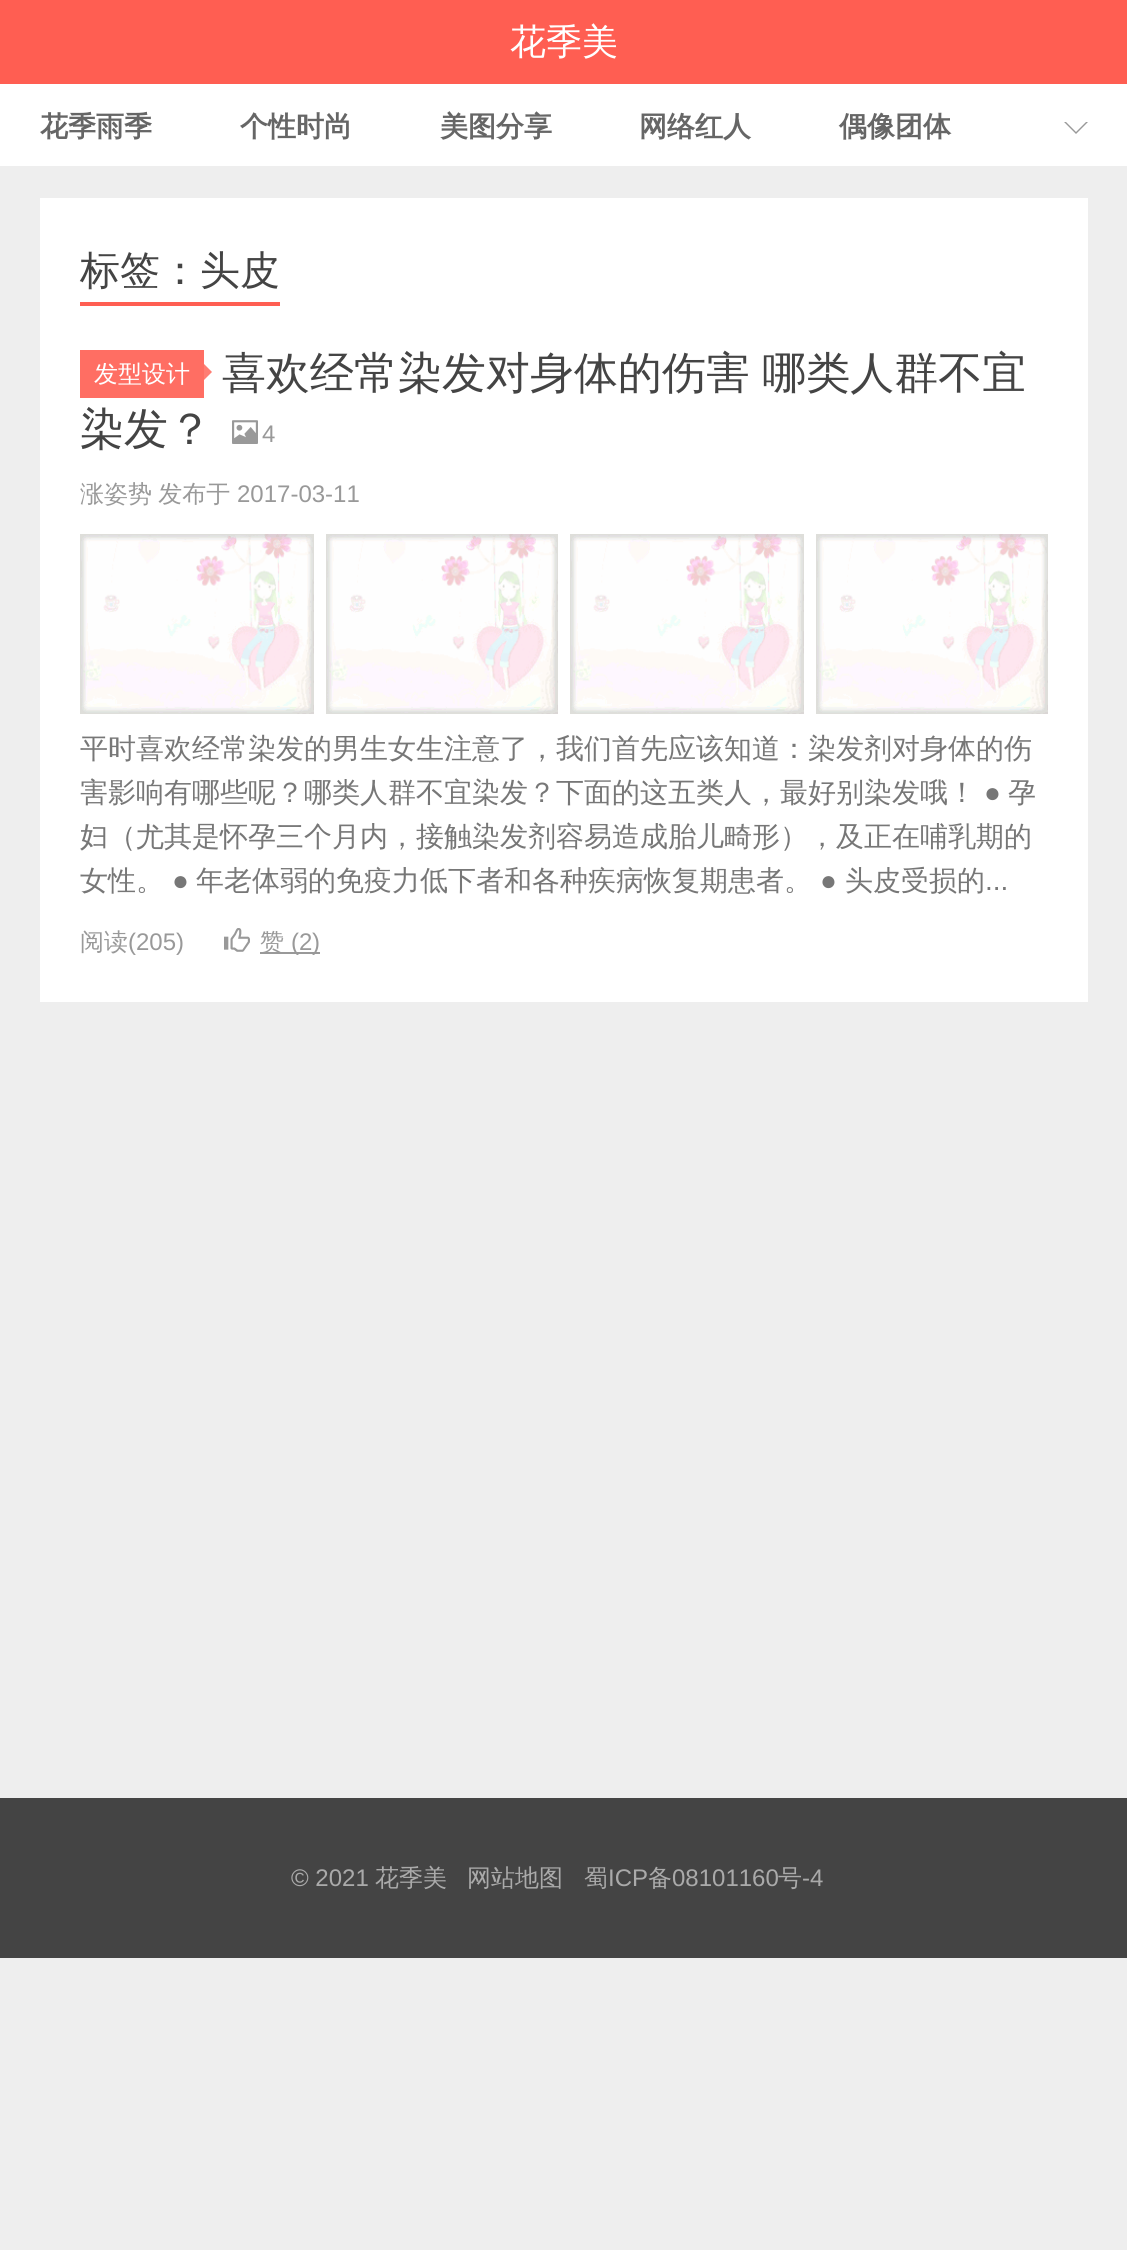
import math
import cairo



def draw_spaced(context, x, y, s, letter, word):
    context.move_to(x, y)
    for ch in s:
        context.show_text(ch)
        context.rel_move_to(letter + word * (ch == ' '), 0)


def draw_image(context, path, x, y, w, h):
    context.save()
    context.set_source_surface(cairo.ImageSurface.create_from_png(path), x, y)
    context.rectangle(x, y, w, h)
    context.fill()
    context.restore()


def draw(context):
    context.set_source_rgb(238 / 255, 238 / 255, 238 / 255)
    context.paint()
    context.set_source_rgb(1, 1, 1)
    context.rectangle(0, 84, 1127, 82)
    context.fill()
    context.set_source_rgb(1, 94 / 255, 82 / 255)
    context.rectangle(0, 0, 1127, 84)
    context.fill()
    context.set_source_rgb(153 / 255, 153 / 255, 153 / 255)
    context.new_path()
    context.move_to(1064, 122)
    context.line_to(1088, 122)
    context.line_to(1076, 134)
    context.close_path()
    context.fill()
    context.set_source_rgb(1, 1, 1)
    context.new_path()
    context.move_to(1064, 120)
    context.line_to(1088, 120)
    context.line_to(1076, 132)
    context.close_path()
    context.fill()
    context.rectangle(40, 198, 1048, 804)
    context.fill()
    context.set_source_rgb(1, 94 / 255, 82 / 255)
    context.rectangle(80, 302, 200, 4)
    context.fill()
    context.set_source_rgb(1, 110 / 255, 99 / 255)
    context.rectangle(80, 350, 124, 48)
    context.fill()
    context.set_source_rgb(1, 125 / 255, 115 / 255)
    context.new_path()
    context.move_to(204, 380)
    context.line_to(204, 364)
    context.line_to(212, 372)
    context.close_path()
    context.fill()
    draw_image(context, "images/1.png", 232, 420, 26, 24)
    draw_image(context, "images/2.png", 80, 534, 234, 180)
    draw_image(context, "images/3.png", 326, 534, 232, 180)
    draw_image(context, "images/2.png", 570, 534, 234, 180)
    draw_image(context, "images/3.png", 816, 534, 232, 180)
    draw_image(context, "images/4.png", 224, 928, 26, 24)
    context.set_source_rgb(153 / 255, 153 / 255, 153 / 255)
    context.rectangle(260, 952, 38, 2)
    context.fill()
    context.rectangle(298, 952, 22, 2)
    context.fill()
    context.set_source_rgb(68 / 255, 68 / 255, 68 / 255)
    context.rectangle(0, 1798, 1127, 160)
    context.fill()
    context.select_font_face("WenQuanYi Zen Hei Medium")
    context.set_font_size(36)
    context.set_source_rgb(1, 1, 1)
    context.move_to(510, 54)
    context.show_text("花季美")
    context.select_font_face("WenQuanYi Zen Hei", cairo.FontSlant.NORMAL, cairo.FontWeight.BOLD)
    context.set_font_size(28)
    context.set_source_rgb(102 / 255, 102 / 255, 102 / 255)
    context.move_to(40, 136)
    context.show_text("花季雨季")
    context.move_to(240, 136)
    context.show_text("个性时尚")
    context.move_to(440, 136)
    context.show_text("美图分享")
    context.move_to(639, 136)
    context.show_text("网络红人")
    context.move_to(839, 136)
    context.show_text("偶像团体")
    context.select_font_face("WenQuanYi Zen Hei Medium")
    context.set_font_size(40)
    context.set_source_rgb(68 / 255, 68 / 255, 68 / 255)
    context.move_to(80, 284)
    context.show_text("标签：头皮")
    context.set_font_size(24)
    context.set_source_rgb(1, 1, 1)
    context.move_to(94, 382)
    context.show_text("发型设计")
    context.set_font_size(44)
    context.set_source_rgb(68 / 255, 68 / 255, 68 / 255)
    draw_spaced(context, 222, 388, "喜欢经常染发对身体的伤害 哪类人群不宜", 0, -1)
    context.move_to(80, 444)
    context.show_text("染发？")
    context.select_font_face("Liberation Sans")
    context.set_font_size(24)
    context.set_source_rgb(153 / 255, 153 / 255, 153 / 255)
    context.move_to(262, 442)
    context.show_text("4")
    context.select_font_face("WenQuanYi Zen Hei Medium")
    draw_spaced(context, 80, 502, "涨姿势 发布于", 0, -1)
    context.select_font_face("Liberation Sans")
    context.move_to(237, 502)
    context.show_text("2017-03-11")
    context.select_font_face("WenQuanYi Zen Hei Medium")
    context.set_font_size(28)
    context.set_source_rgb(119 / 255, 119 / 255, 119 / 255)
    context.move_to(80, 758)
    context.show_text("平时喜欢经常染发的男生女生注意了，我们首先应该知道：染发剂对身体的伤")
    context.move_to(80, 802)
    context.show_text("害影响有哪些呢？哪类人群不宜染发？下面的这五类人，最好别染发哦！")
    context.select_font_face("Liberation Sans")
    context.move_to(984, 802)
    context.show_text("●")
    context.select_font_face("WenQuanYi Zen Hei Medium")
    context.move_to(1008, 802)
    context.show_text("孕")
    context.move_to(80, 846)
    context.show_text("妇（尤其是怀孕三个月内，接触染发剂容易造成胎儿畸形），及正在哺乳期的")
    context.move_to(80, 890)
    context.show_text("女性。")
    context.select_font_face("Liberation Sans")
    context.move_to(172, 890)
    context.show_text("●")
    context.select_font_face("WenQuanYi Zen Hei Medium")
    context.move_to(196, 890)
    context.show_text("年老体弱的免疫力低下者和各种疾病恢复期患者。")
    context.select_font_face("Liberation Sans")
    context.move_to(820, 890)
    context.show_text("●")
    context.select_font_face("WenQuanYi Zen Hei Medium")
    context.move_to(845, 890)
    context.show_text("头皮受损的")
    context.select_font_face("Liberation Sans")
    context.move_to(985, 890)
    context.show_text("...")
    context.select_font_face("WenQuanYi Zen Hei Medium")
    context.set_font_size(24)
    context.set_source_rgb(153 / 255, 153 / 255, 153 / 255)
    context.move_to(80, 950)
    context.show_text("阅读")
    context.select_font_face("Liberation Sans")
    context.move_to(128, 950)
    context.show_text("(205)")
    context.select_font_face("WenQuanYi Zen Hei Medium")
    context.move_to(260, 950)
    context.show_text("赞")
    context.select_font_face("Liberation Sans")
    context.move_to(291, 950)
    context.show_text("(2")
    context.move_to(312, 950)
    context.show_text(")")
    context.set_source_rgb(170 / 255, 170 / 255, 170 / 255)
    context.move_to(291, 1886)
    context.show_text("© 2021")
    context.select_font_face("WenQuanYi Zen Hei Medium")
    context.move_to(375, 1886)
    context.show_text("花季美")
    context.move_to(467, 1886)
    context.show_text("网站地图")
    context.move_to(584, 1886)
    context.show_text("蜀")
    context.select_font_face("Liberation Sans")
    context.move_to(608, 1886)
    context.show_text("ICP")
    context.select_font_face("WenQuanYi Zen Hei Medium")
    context.move_to(648, 1886)
    context.show_text("备")
    context.select_font_face("Liberation Sans")
    context.move_to(672, 1886)
    context.show_text("08101160")
    context.select_font_face("WenQuanYi Zen Hei Medium")
    context.move_to(778, 1886)
    context.show_text("号")
    context.select_font_face("Liberation Sans")
    context.move_to(802, 1886)
    context.show_text("-4")


surface = cairo.ImageSurface(cairo.Format.RGB24, 1127, 2250)
context = cairo.Context(surface)
options = cairo.FontOptions()
options.set_hint_metrics(cairo.HintMetrics.OFF)
options.set_hint_style(cairo.HintStyle.NONE)
context.set_font_options(options)
context.set_miter_limit(4)
draw(context)
surface.write_to_png("out.png")
